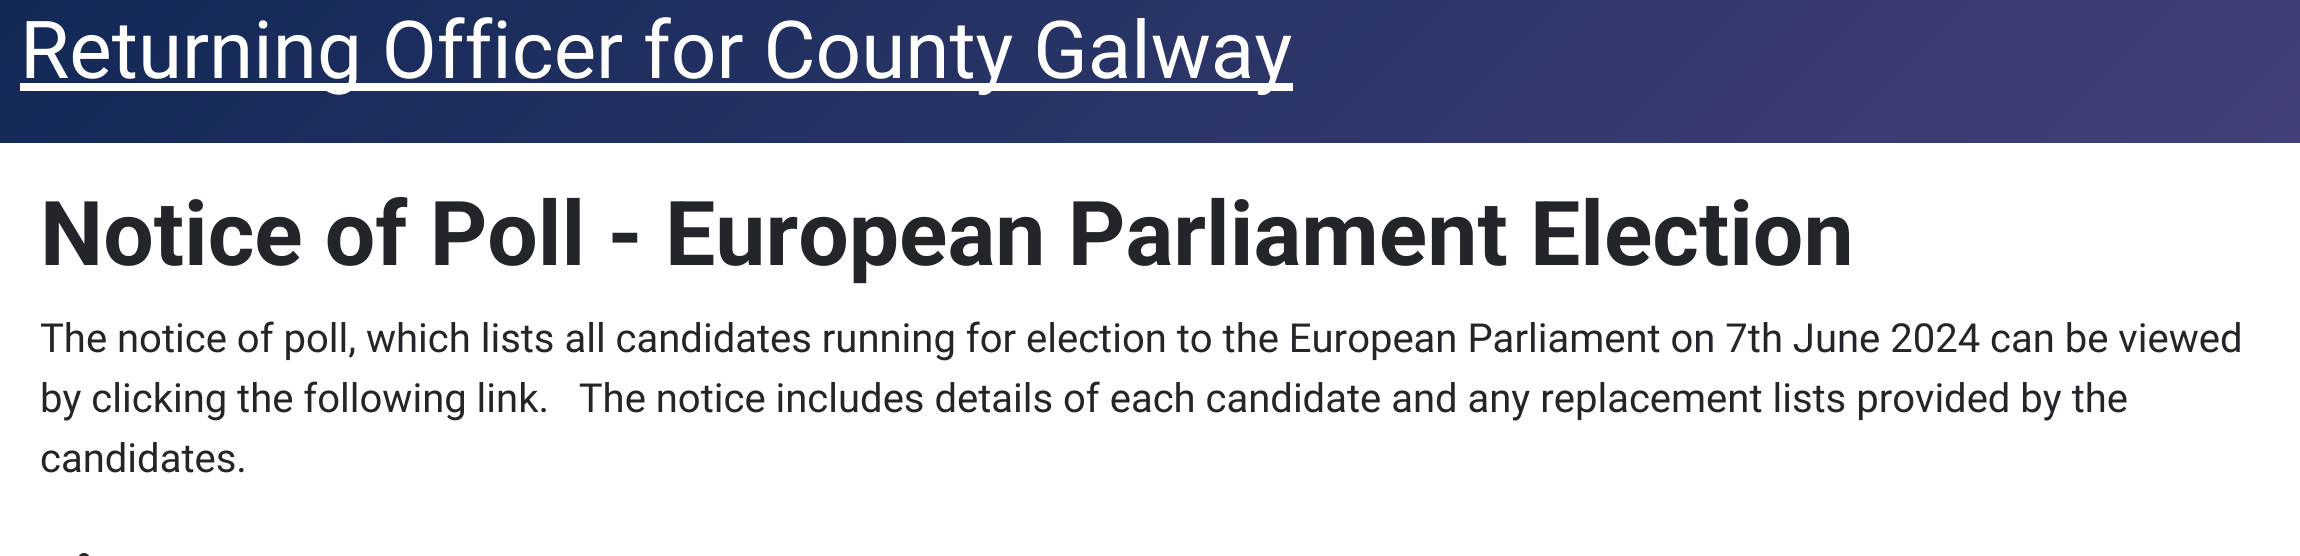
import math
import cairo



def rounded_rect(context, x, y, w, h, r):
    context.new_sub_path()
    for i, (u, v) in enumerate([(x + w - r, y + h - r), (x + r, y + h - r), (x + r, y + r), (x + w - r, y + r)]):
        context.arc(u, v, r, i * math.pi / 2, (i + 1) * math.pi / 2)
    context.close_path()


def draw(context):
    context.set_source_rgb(1, 1, 1)
    context.paint()
    gradient = cairo.LinearGradient(529, -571, 1771, 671)
    gradient.add_color_stop_rgba(0, 17 / 255, 40 / 255, 85 / 255, 1)
    gradient.add_color_stop_rgba(1, 66 / 255, 64 / 255, 119 / 255, 1)
    context.set_source(gradient)
    context.rectangle(0, 0, 2300, 143)
    context.fill()
    context.set_source_rgb(1, 1, 1)
    context.rectangle(20, 83, 1273, 8)
    context.fill()
    context.set_source_rgb(34 / 255, 38 / 255, 42 / 255)
    rounded_rect(context, 78, 553, 12, 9, 6)
    context.fill()
    context.select_font_face("Roboto")
    context.set_font_size(80)
    context.set_source_rgb(1, 1, 1)
    context.move_to(20, 78)
    context.show_text("Returning Officer for County Galway")
    context.select_font_face("Roboto", cairo.FontSlant.NORMAL, cairo.FontWeight.BOLD)
    context.set_font_size(89.5)
    context.set_source_rgb(34 / 255, 38 / 255, 42 / 255)
    context.move_to(40, 265)
    context.show_text("Notice of Poll - European Parliament Election")
    context.select_font_face("Roboto")
    context.set_font_size(40)
    context.move_to(40, 352)
    context.show_text("The notice of poll, which lists all candidates running for election to the European Parliament on 7th June 2024 can be viewed")
    context.move_to(40, 412)
    context.show_text("by clicking the following link.   The notice includes details of each candidate and any replacement lists provided by the")
    context.move_to(40, 472)
    context.show_text("candidates.")


surface = cairo.ImageSurface(cairo.Format.RGB24, 2300, 556)
context = cairo.Context(surface)
options = cairo.FontOptions()
options.set_hint_metrics(cairo.HintMetrics.OFF)
options.set_hint_style(cairo.HintStyle.NONE)
context.set_font_options(options)
context.set_miter_limit(4)
draw(context)
surface.write_to_png("out.png")
